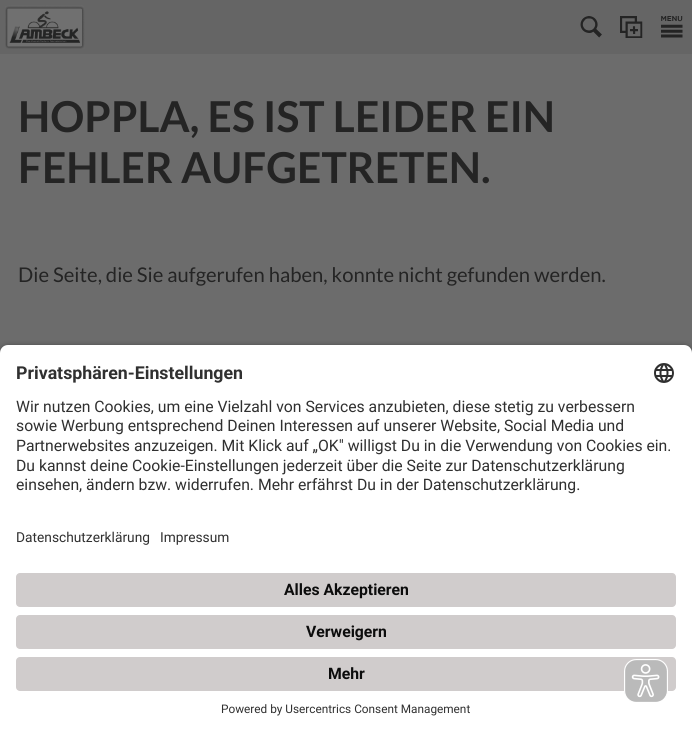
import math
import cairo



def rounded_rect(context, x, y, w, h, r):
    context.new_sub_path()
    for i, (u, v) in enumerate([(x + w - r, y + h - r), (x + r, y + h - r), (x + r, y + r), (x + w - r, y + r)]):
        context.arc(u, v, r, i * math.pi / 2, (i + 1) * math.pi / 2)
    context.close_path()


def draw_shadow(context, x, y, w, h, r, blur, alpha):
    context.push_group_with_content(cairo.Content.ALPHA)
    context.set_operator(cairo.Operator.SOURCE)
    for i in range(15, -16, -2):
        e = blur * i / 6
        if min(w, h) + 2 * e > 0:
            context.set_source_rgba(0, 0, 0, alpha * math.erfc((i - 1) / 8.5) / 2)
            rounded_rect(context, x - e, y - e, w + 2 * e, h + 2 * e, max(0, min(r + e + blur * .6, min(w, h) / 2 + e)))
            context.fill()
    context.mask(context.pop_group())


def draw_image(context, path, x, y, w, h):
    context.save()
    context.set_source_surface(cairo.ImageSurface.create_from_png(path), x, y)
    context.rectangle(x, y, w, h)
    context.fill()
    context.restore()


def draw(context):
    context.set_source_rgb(108 / 255, 108 / 255, 108 / 255)
    context.paint()
    context.set_source_rgb(101 / 255, 101 / 255, 101 / 255)
    context.rectangle(0, 0, 692, 54)
    context.fill()
    draw_image(context, "images/1.png", 5, 5, 80, 44)
    draw_image(context, "images/2.png", 580, 16, 22, 22)
    draw_image(context, "images/3.png", 620, 16, 23, 22)
    draw_image(context, "images/4.png", 661, 16, 22, 22)
    context.set_source_rgb(0, 0, 0)
    draw_shadow(context, 0, 348, 692, 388, 8, 3.5, 0.8)
    context.set_source_rgb(1, 1, 1)
    context.new_path()
    context.move_to(8, 345)
    context.line_to(684, 345)
    context.curve_to(688.5, 345, 692, 348.5, 692, 353)
    context.line_to(692, 515)
    context.line_to(0, 515)
    context.line_to(0, 353)
    context.curve_to(0, 348.5, 3.5, 345, 8, 345)
    context.close_path()
    context.fill()
    draw_image(context, "images/5.png", 654, 363, 20, 20)
    context.rectangle(0, 515, 692, 218)
    context.fill()
    context.set_source_rgb(208 / 255, 204 / 255, 204 / 255)
    rounded_rect(context, 16, 573, 660, 34, 4)
    context.fill()
    rounded_rect(context, 16, 615, 660, 34, 4)
    context.fill()
    rounded_rect(context, 16, 657, 660, 34, 4)
    context.fill()
    draw_image(context, "images/6.png", 624, 659, 44, 43)
    context.select_font_face("Lato", cairo.FontSlant.NORMAL, cairo.FontWeight.BOLD)
    context.set_font_size(42.6)
    context.set_source_rgb(36 / 255, 36 / 255, 36 / 255)
    context.move_to(18, 132)
    context.show_text("HOPPLA, ES IST LEIDER EIN")
    context.move_to(18, 183)
    context.show_text("FEHLER AUFGETRETEN.")
    context.select_font_face("Lato")
    context.set_font_size(20.25)
    context.move_to(18, 282)
    context.show_text("Die Seite, die Sie aufgerufen haben, konnte nicht gefunden werden.")
    context.select_font_face("Roboto", cairo.FontSlant.NORMAL, cairo.FontWeight.BOLD)
    context.set_font_size(17.75)
    context.set_source_rgb(48 / 255, 48 / 255, 48 / 255)
    context.move_to(16, 379)
    context.show_text("Privatsphären-Einstellungen")
    context.select_font_face("Roboto")
    context.set_font_size(15.75)
    context.move_to(16, 412)
    context.show_text("Wir nutzen Cookies, um eine Vielzahl von Services anzubieten, diese stetig zu verbessern")
    context.move_to(16, 431)
    context.show_text("sowie Werbung entsprechend Deinen Interessen auf unserer Website, Social Media und")
    context.move_to(16, 451)
    context.show_text("Partnerwebsites anzuzeigen. Mit Klick auf „OK\" willigst Du in die Verwendung von Cookies ein.")
    context.move_to(16, 471)
    context.show_text("Du kannst deine Cookie-Einstellungen jederzeit über die Seite zur Datenschutzerklärung")
    context.move_to(16, 490)
    context.show_text("einsehen, ändern bzw. widerrufen. Mehr erfährst Du in der Datenschutzerklärung.")
    context.set_font_size(13.75)
    context.move_to(16, 542)
    context.show_text("Datenschutzerklärung")
    context.move_to(160, 542)
    context.show_text("Impressum")
    context.select_font_face("Roboto", cairo.FontSlant.NORMAL, cairo.FontWeight.BOLD)
    context.set_font_size(15.75)
    context.set_source_rgb(12 / 255, 12 / 255, 12 / 255)
    context.move_to(284, 595)
    context.show_text("Alles Akzeptieren")
    context.move_to(306, 637)
    context.show_text("Verweigern")
    context.move_to(328, 679)
    context.show_text("Mehr")
    context.select_font_face("Roboto")
    context.set_font_size(11.8)
    context.set_source_rgb(48 / 255, 48 / 255, 48 / 255)
    context.move_to(221, 713)
    context.show_text("Powered by Usercentrics Consent Management")


surface = cairo.ImageSurface(cairo.Format.RGB24, 692, 733)
context = cairo.Context(surface)
options = cairo.FontOptions()
options.set_hint_metrics(cairo.HintMetrics.OFF)
options.set_hint_style(cairo.HintStyle.NONE)
context.set_font_options(options)
context.set_miter_limit(4)
draw(context)
surface.write_to_png("out.png")
